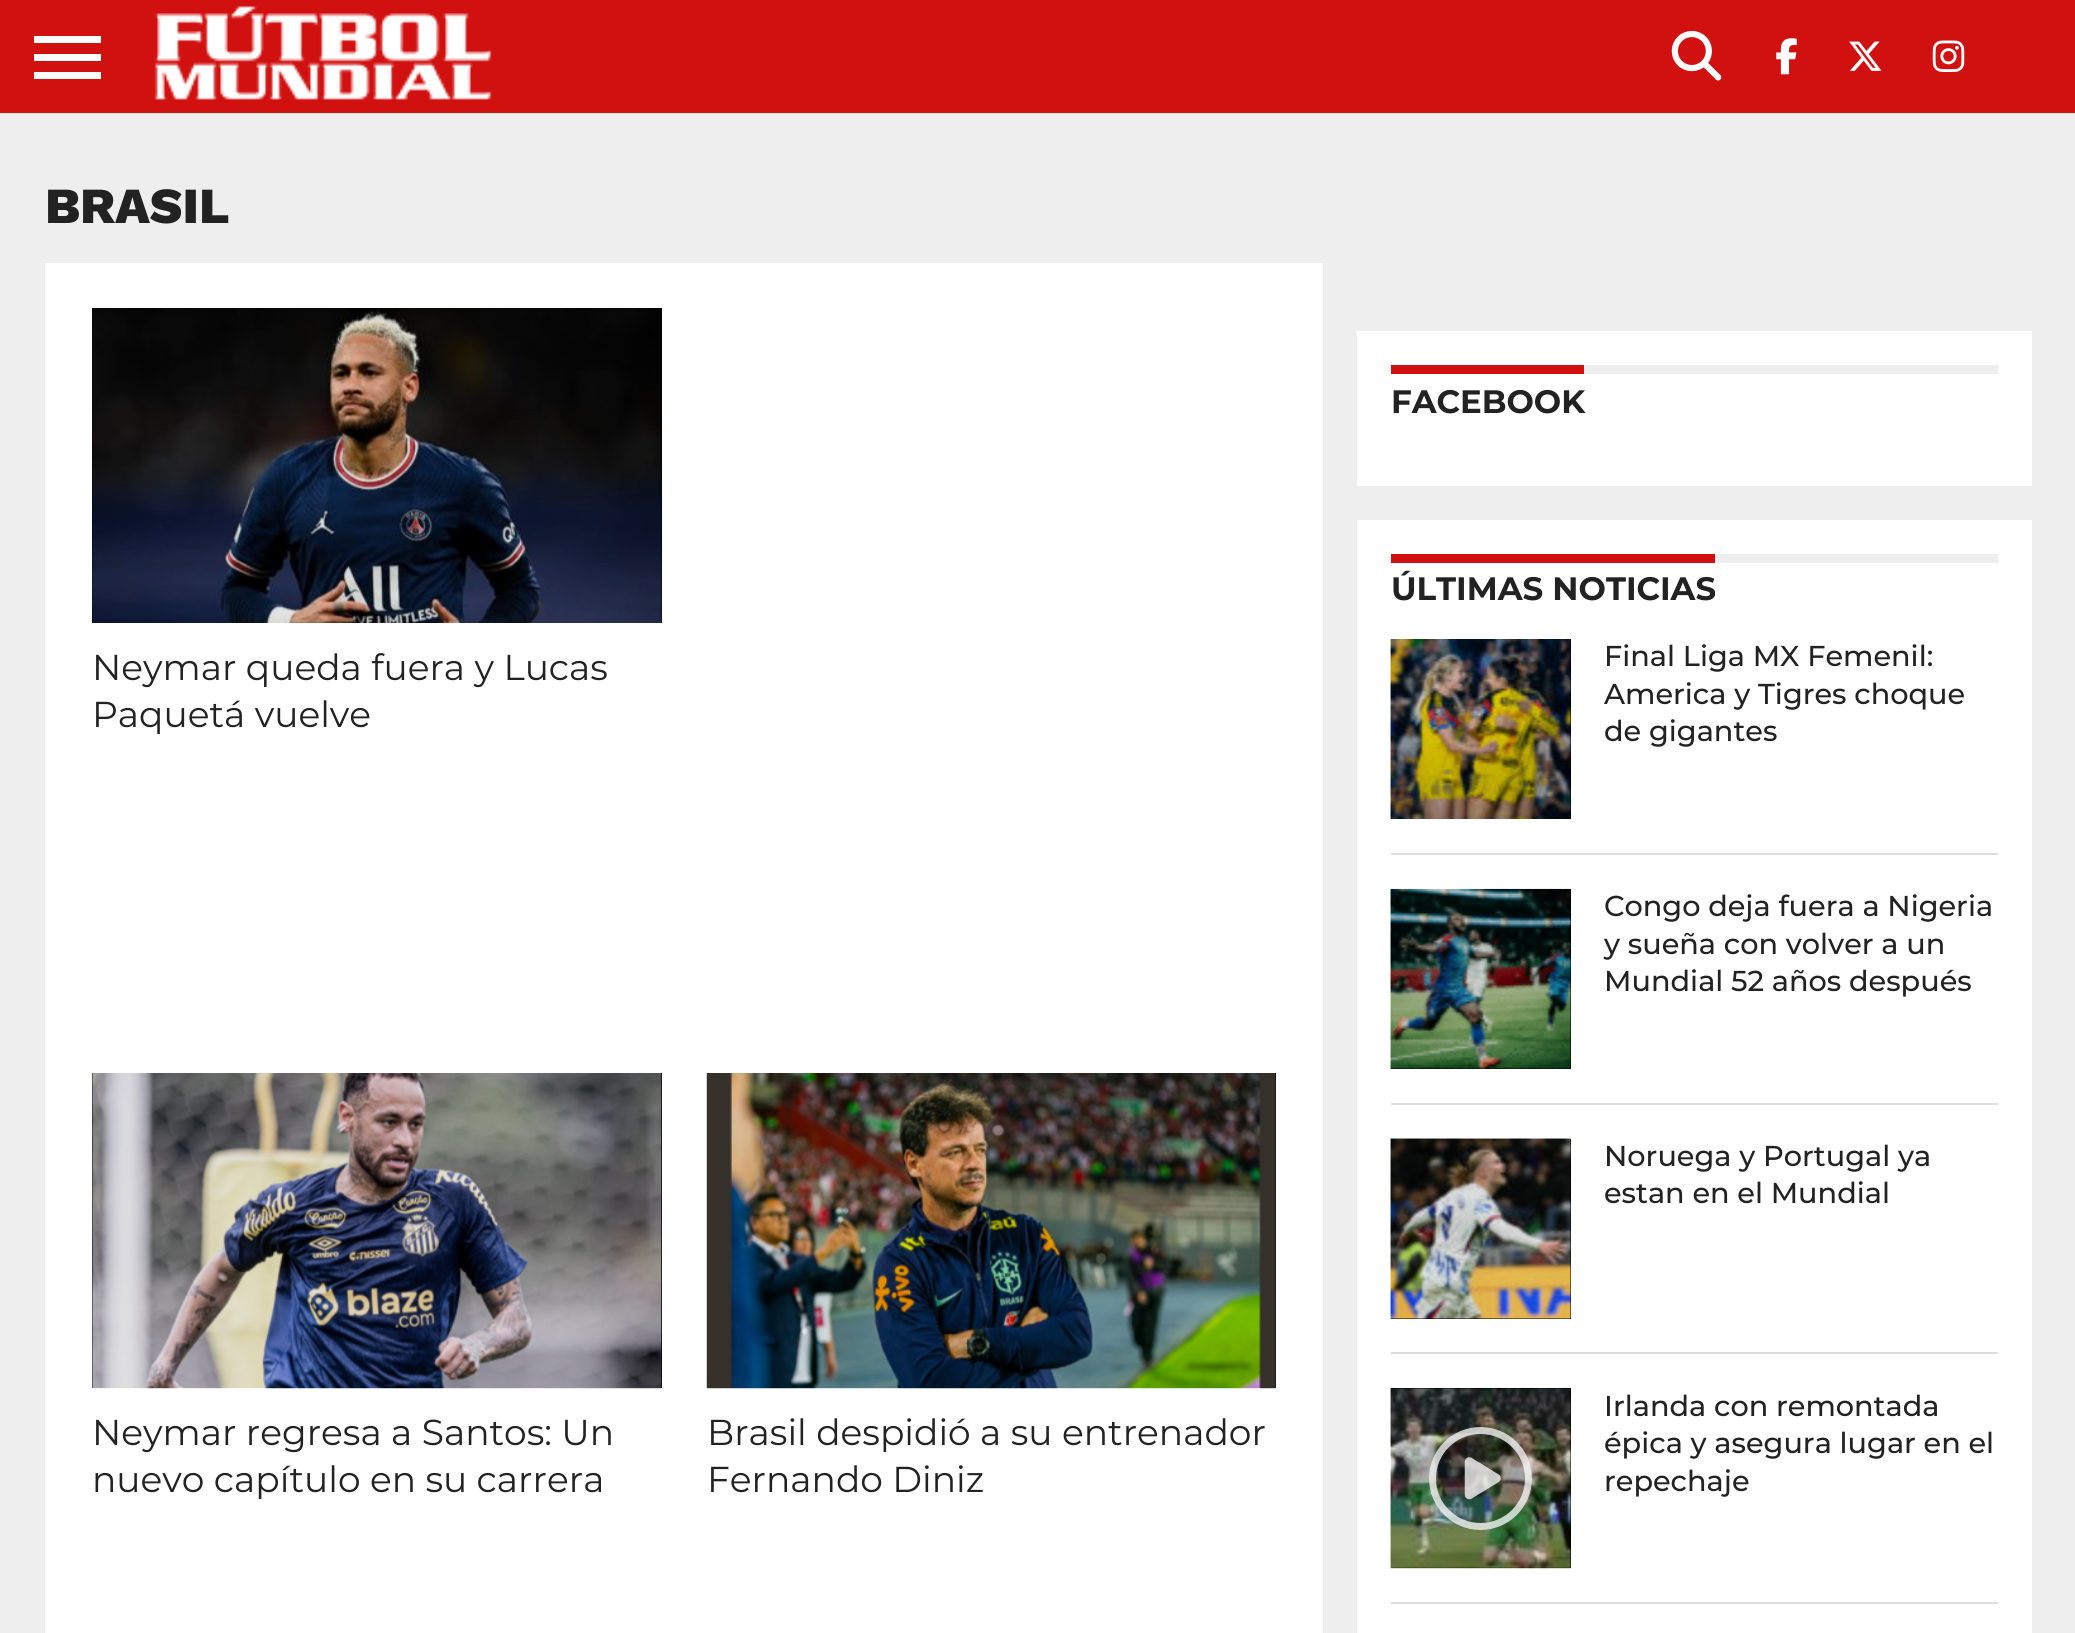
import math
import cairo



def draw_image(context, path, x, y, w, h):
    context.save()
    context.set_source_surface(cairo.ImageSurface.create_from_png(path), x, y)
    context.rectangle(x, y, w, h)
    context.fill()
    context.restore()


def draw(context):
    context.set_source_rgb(238 / 255, 238 / 255, 238 / 255)
    context.paint()
    context.set_source_rgb(209 / 255, 16 / 255, 16 / 255)
    context.rectangle(0, 0, 2075, 113)
    context.fill()
    context.set_source_rgb(1, 1, 1)
    context.rectangle(34, 36, 67, 7)
    context.fill()
    context.rectangle(34, 54, 67, 7)
    context.fill()
    context.rectangle(34, 72, 67, 7)
    context.fill()
    draw_image(context, "images/1.png", 154, 6, 338, 94)
    draw_image(context, "images/2.png", 1671, 30, 51, 51)
    draw_image(context, "images/3.png", 1776, 38, 21, 37)
    draw_image(context, "images/4.png", 1849, 41, 33, 30)
    draw_image(context, "images/5.png", 1932, 40, 33, 32)
    context.rectangle(45, 263, 1278, 1370)
    context.fill()
    context.set_source_rgb(0, 0, 0)
    context.rectangle(92, 308, 570, 315)
    context.fill()
    draw_image(context, "images/6.png", 92, 308, 570, 315)
    context.rectangle(92, 1073, 570, 315)
    context.fill()
    draw_image(context, "images/7.png", 92, 1073, 570, 316)
    context.rectangle(707, 1073, 569, 315)
    context.fill()
    draw_image(context, "images/8.png", 706, 1073, 570, 316)
    context.set_source_rgb(1, 1, 1)
    context.rectangle(1357, 331, 675, 155)
    context.fill()
    context.set_source_rgb(238 / 255, 238 / 255, 238 / 255)
    context.rectangle(1584, 365, 414, 9)
    context.fill()
    context.set_source_rgb(209 / 255, 16 / 255, 16 / 255)
    context.rectangle(1391, 365, 193, 9)
    context.fill()
    context.set_source_rgb(1, 1, 1)
    context.rectangle(1357, 520, 675, 1113)
    context.fill()
    context.set_source_rgb(238 / 255, 238 / 255, 238 / 255)
    context.rectangle(1715, 554, 283, 9)
    context.fill()
    context.set_source_rgb(209 / 255, 16 / 255, 16 / 255)
    context.rectangle(1391, 554, 324, 9)
    context.fill()
    context.set_source_rgb(0, 0, 0)
    context.rectangle(1391, 639, 180, 180)
    context.fill()
    draw_image(context, "images/9.png", 1390, 639, 181, 180)
    context.set_source_rgb(221 / 255, 221 / 255, 221 / 255)
    context.rectangle(1391, 853, 607, 2)
    context.fill()
    context.set_source_rgb(0, 0, 0)
    context.rectangle(1391, 889, 180, 180)
    context.fill()
    draw_image(context, "images/10.png", 1390, 888, 181, 181)
    context.set_source_rgb(221 / 255, 221 / 255, 221 / 255)
    context.rectangle(1391, 1103, 607, 2)
    context.fill()
    context.set_source_rgb(0, 0, 0)
    context.rectangle(1391, 1139, 180, 180)
    context.fill()
    draw_image(context, "images/11.png", 1390, 1138, 181, 181)
    context.set_source_rgb(221 / 255, 221 / 255, 221 / 255)
    context.rectangle(1391, 1352, 607, 2)
    context.fill()
    context.set_source_rgb(0, 0, 0)
    context.rectangle(1391, 1388, 180, 180)
    context.fill()
    draw_image(context, "images/12.png", 1390, 1387, 181, 182)
    context.set_source_rgba(0, 0, 0, 0.22)
    context.arc(1480.5, 1478.5, 51.5, 0, 2 * math.pi)
    context.fill()
    context.arc(1480.5, 1478.5, 48, 0, 2 * math.pi)
    context.set_source_rgba(1, 1, 1, 0.75)
    context.set_line_width(7)
    context.stroke()
    draw_image(context, "images/13.png", 1464, 1457, 37, 43)
    context.set_source_rgb(221 / 255, 221 / 255, 221 / 255)
    context.rectangle(1391, 1602, 607, 2)
    context.fill()
    context.select_font_face("Work Sans ExtraBold")
    context.set_font_size(50.5)
    context.set_source_rgb(34 / 255, 34 / 255, 34 / 255)
    context.move_to(45, 223)
    context.show_text("BRASIL")
    context.select_font_face("Montserrat")
    context.set_font_size(36)
    context.move_to(92, 680)
    context.show_text("Neymar queda fuera y Lucas")
    context.move_to(92, 727)
    context.show_text("Paquetá vuelve")
    context.move_to(92, 1445)
    context.show_text("Neymar regresa a Santos: Un")
    context.move_to(92, 1492)
    context.show_text("nuevo capítulo en su carrera")
    context.move_to(707, 1445)
    context.show_text("Brasil despidió a su entrenador")
    context.move_to(707, 1492)
    context.show_text("Fernando Diniz")
    context.select_font_face("Montserrat", cairo.FontSlant.NORMAL, cairo.FontWeight.BOLD)
    context.set_font_size(32.4)
    context.move_to(1391, 413)
    context.show_text("FACEBOOK")
    context.move_to(1391, 600)
    context.show_text("ÚLTIMAS NOTICIAS")
    context.select_font_face("Montserrat Medium")
    context.set_font_size(28.75)
    context.move_to(1604, 666)
    context.show_text("Final Liga MX Femenil:")
    context.move_to(1604, 704)
    context.show_text("America y Tigres choque")
    context.move_to(1604, 741)
    context.show_text("de gigantes")
    context.move_to(1604, 916)
    context.show_text("Congo deja fuera a Nigeria")
    context.move_to(1604, 954)
    context.show_text("y sueña con volver a un")
    context.move_to(1604, 991)
    context.show_text("Mundial 52 años después")
    context.move_to(1604, 1166)
    context.show_text("Noruega y Portugal ya")
    context.move_to(1604, 1203)
    context.show_text("estan en el Mundial")
    context.move_to(1604, 1416)
    context.show_text("Irlanda con remontada")
    context.move_to(1604, 1453)
    context.show_text("épica y asegura lugar en el")
    context.move_to(1604, 1491)
    context.show_text("repechaje")


surface = cairo.ImageSurface(cairo.Format.RGB24, 2075, 1633)
context = cairo.Context(surface)
options = cairo.FontOptions()
options.set_hint_metrics(cairo.HintMetrics.OFF)
options.set_hint_style(cairo.HintStyle.NONE)
context.set_font_options(options)
context.set_miter_limit(4)
draw(context)
surface.write_to_png("out.png")
